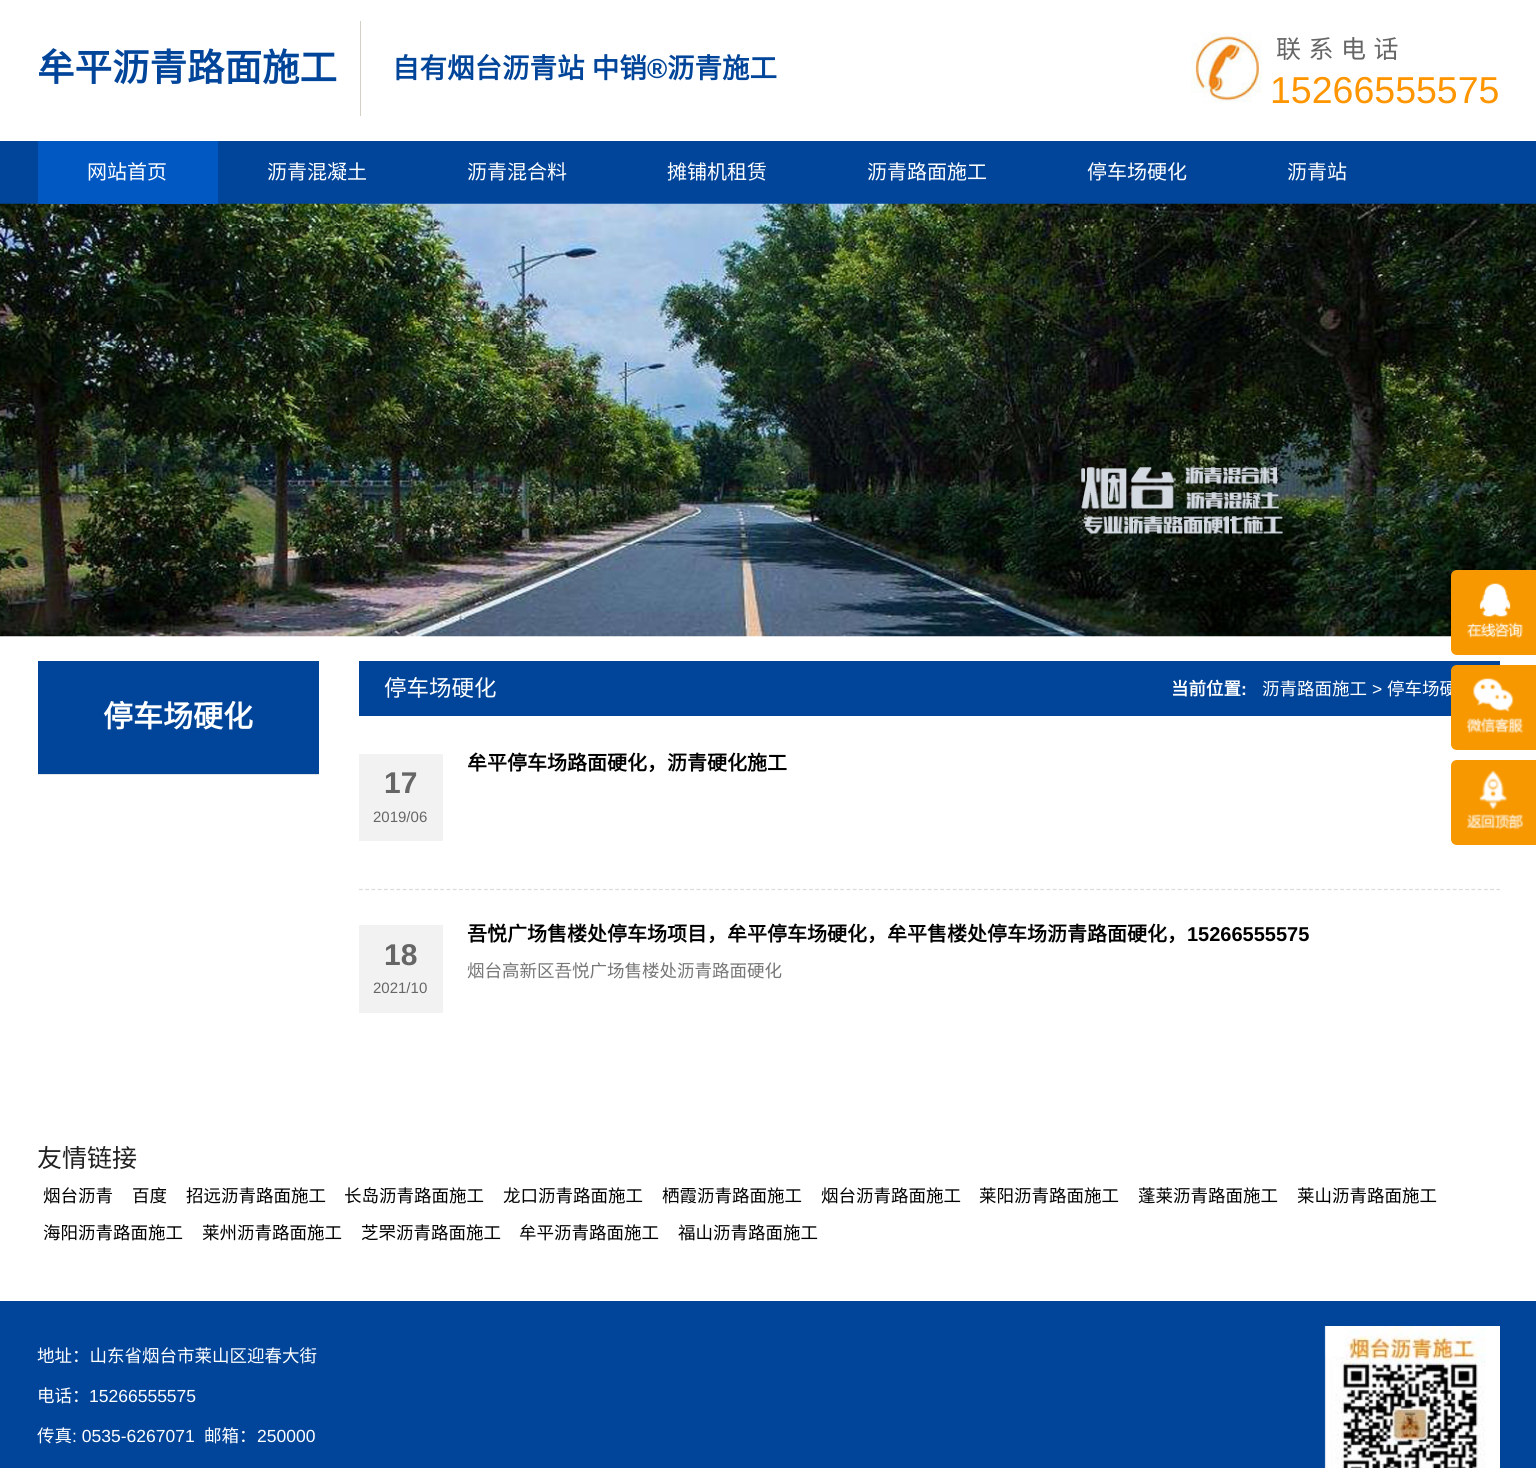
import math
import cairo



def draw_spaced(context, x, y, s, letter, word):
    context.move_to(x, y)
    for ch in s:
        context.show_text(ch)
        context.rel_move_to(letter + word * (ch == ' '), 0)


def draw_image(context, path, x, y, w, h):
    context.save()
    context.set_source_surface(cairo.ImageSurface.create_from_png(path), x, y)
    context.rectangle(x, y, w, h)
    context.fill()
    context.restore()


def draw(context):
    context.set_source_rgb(1, 1, 1)
    context.paint()
    context.set_source_rgb(212 / 255, 208 / 255, 200 / 255)
    context.rectangle(360, 21, 1, 95)
    context.fill()
    draw_image(context, "images/1.png", 1191, 32, 71, 71)
    context.set_source_rgb(1 / 255, 69 / 255, 154 / 255)
    context.rectangle(0, 141, 1536, 63)
    context.fill()
    draw_image(context, "images/2.png", 0, 203, 1536, 434)
    context.set_source_rgb(1 / 255, 88 / 255, 194 / 255)
    context.rectangle(38, 141, 180, 63)
    context.fill()
    context.set_source_rgb(1 / 255, 69 / 255, 154 / 255)
    context.rectangle(38, 661, 281, 113)
    context.fill()
    context.set_source_rgb(229 / 255, 229 / 255, 229 / 255)
    context.rectangle(38, 774, 281, 1)
    context.fill()
    context.set_source_rgb(1 / 255, 69 / 255, 154 / 255)
    context.rectangle(359, 661, 1141, 55)
    context.fill()
    context.set_source_rgb(242 / 255, 242 / 255, 242 / 255)
    context.rectangle(359, 754, 84, 87)
    context.fill()
    context.new_path()
    context.move_to(359, 889.5)
    context.line_to(1500, 889.5)
    context.set_source_rgb(219 / 255, 219 / 255, 219 / 255)
    context.set_line_width(1.2)
    context.set_dash([3.75, 2.5])
    context.stroke()
    context.set_source_rgb(242 / 255, 242 / 255, 242 / 255)
    context.rectangle(359, 925, 84, 88)
    context.fill()
    context.set_source_rgb(247 / 255, 152 / 255, 0)
    context.new_path()
    context.move_to(1457, 570)
    context.line_to(1536, 570)
    context.line_to(1536, 655)
    context.line_to(1457, 655)
    context.curve_to(1453.5, 655, 1451, 652.5, 1451, 649)
    context.line_to(1451, 576)
    context.curve_to(1451, 572.5, 1453.5, 570, 1457, 570)
    context.close_path()
    context.fill()
    draw_image(context, "images/3.png", 1467, 583, 56, 55)
    context.new_path()
    context.move_to(1457, 760)
    context.line_to(1536, 760)
    context.line_to(1536, 845)
    context.line_to(1457, 845)
    context.curve_to(1453.5, 845, 1451, 842.5, 1451, 839)
    context.line_to(1451, 766)
    context.curve_to(1451, 762.5, 1453.5, 760, 1457, 760)
    context.close_path()
    context.fill()
    draw_image(context, "images/5.png", 1467, 770, 57, 60)
    context.set_source_rgb(1 / 255, 69 / 255, 154 / 255)
    context.rectangle(0, 1301, 1536, 167)
    context.fill()
    draw_image(context, "images/6.png", 1324, 1326, 176, 142)
    context.select_font_face("Noto Sans CJK SC", cairo.FontSlant.NORMAL, cairo.FontWeight.BOLD)
    context.set_font_size(37.5)
    context.move_to(37, 81)
    context.show_text("牟平沥青路面施工")
    context.set_font_size(27.5)
    draw_spaced(context, 392, 78, "自有烟台沥青站 中销", 0, 1)
    context.select_font_face("Liberation Sans", cairo.FontSlant.NORMAL, cairo.FontWeight.BOLD)
    context.move_to(647, 78)
    context.show_text("®")
    context.select_font_face("Noto Sans CJK SC", cairo.FontSlant.NORMAL, cairo.FontWeight.BOLD)
    context.move_to(667, 78)
    context.show_text("沥青施工")
    context.select_font_face("Noto Sans CJK SC")
    context.set_font_size(25)
    context.set_source_rgb(102 / 255, 102 / 255, 102 / 255)
    draw_spaced(context, 1276, 58, "联系电话", 7.5, 0)
    context.select_font_face("Liberation Sans")
    context.set_font_size(37.5)
    context.set_source_rgb(1, 149 / 255, 0)
    context.move_to(1270, 103)
    context.show_text("15266555575")
    context.select_font_face("Noto Sans CJK SC")
    context.set_font_size(20)
    context.set_source_rgb(1, 1, 1)
    context.move_to(87, 179)
    context.show_text("网站首页")
    context.move_to(267, 179)
    context.show_text("沥青混凝土")
    context.move_to(467, 179)
    context.show_text("沥青混合料")
    context.move_to(667, 179)
    context.show_text("摊铺机租赁")
    context.move_to(867, 179)
    context.show_text("沥青路面施工")
    context.move_to(1087, 179)
    context.show_text("停车场硬化")
    context.move_to(1287, 179)
    context.show_text("沥青站")
    context.select_font_face("Noto Sans CJK SC", cairo.FontSlant.NORMAL, cairo.FontWeight.BOLD)
    context.set_font_size(30)
    context.move_to(103, 727)
    context.show_text("停车场硬化")
    context.select_font_face("Noto Sans CJK SC")
    context.set_font_size(22.5)
    context.move_to(384, 696)
    context.show_text("停车场硬化")
    context.select_font_face("Noto Sans CJK SC", cairo.FontSlant.NORMAL, cairo.FontWeight.BOLD)
    context.set_font_size(17.5)
    context.move_to(1171, 695)
    context.show_text("当前位置")
    context.select_font_face("Liberation Sans", cairo.FontSlant.NORMAL, cairo.FontWeight.BOLD)
    context.move_to(1241, 695)
    context.show_text(":")
    context.select_font_face("Noto Sans CJK SC")
    context.move_to(1262, 695)
    context.show_text("沥青路面施工")
    context.select_font_face("Liberation Sans")
    context.move_to(1372, 695)
    context.show_text(">")
    context.select_font_face("Noto Sans CJK SC")
    context.move_to(1387, 695)
    context.show_text("停车场硬")
    context.select_font_face("Noto Sans CJK SC", cairo.FontSlant.NORMAL, cairo.FontWeight.BOLD)
    context.set_font_size(20)
    context.set_source_rgb(0, 0, 0)
    context.move_to(467, 770)
    context.show_text("牟平停车场路面硬化，沥青硬化施工")
    context.select_font_face("Liberation Sans", cairo.FontSlant.NORMAL, cairo.FontWeight.BOLD)
    context.set_font_size(30)
    context.set_source_rgb(102 / 255, 102 / 255, 102 / 255)
    context.move_to(384, 793)
    context.show_text("17")
    context.select_font_face("Liberation Sans")
    context.set_font_size(15)
    context.move_to(373, 822)
    context.show_text("2019/06")
    context.select_font_face("Liberation Sans", cairo.FontSlant.NORMAL, cairo.FontWeight.BOLD)
    context.set_font_size(30)
    context.move_to(384, 965)
    context.show_text("18")
    context.select_font_face("Liberation Sans")
    context.set_font_size(15)
    context.move_to(373, 993)
    context.show_text("2021/10")
    context.select_font_face("Noto Sans CJK SC", cairo.FontSlant.NORMAL, cairo.FontWeight.BOLD)
    context.set_font_size(20)
    context.set_source_rgb(0, 0, 0)
    context.move_to(467, 941)
    context.show_text("吾悦广场售楼处停车场项目，牟平停车场硬化，牟平售楼处停车场沥青路面硬化，")
    context.select_font_face("Liberation Sans", cairo.FontSlant.NORMAL, cairo.FontWeight.BOLD)
    context.move_to(1187, 941)
    context.show_text("15266555575")
    context.select_font_face("Noto Sans CJK SC")
    context.set_font_size(17.5)
    context.set_source_rgb(119 / 255, 119 / 255, 119 / 255)
    context.move_to(467, 977)
    context.show_text("烟台高新区吾悦广场售楼处沥青路面硬化")
    context.set_source_rgb(247 / 255, 152 / 255, 0)
    context.new_path()
    context.move_to(1457, 665)
    context.line_to(1536, 665)
    context.line_to(1536, 750)
    context.line_to(1457, 750)
    context.curve_to(1453.5, 750, 1451, 747.5, 1451, 744)
    context.line_to(1451, 671)
    context.curve_to(1451, 667.5, 1453.5, 665, 1457, 665)
    context.close_path()
    context.fill()
    draw_image(context, "images/4.png", 1466, 678, 58, 55)
    context.set_font_size(25)
    context.set_source_rgb(34 / 255, 34 / 255, 34 / 255)
    context.move_to(37, 1167)
    context.show_text("友情链接")
    context.set_font_size(17.5)
    context.set_source_rgb(0, 0, 0)
    context.move_to(43, 1202)
    context.show_text("烟台沥青")
    context.move_to(132, 1202)
    context.show_text("百度")
    context.move_to(186, 1202)
    context.show_text("招远沥青路面施工")
    context.move_to(344, 1202)
    context.show_text("长岛沥青路面施工")
    context.move_to(503, 1202)
    context.show_text("龙口沥青路面施工")
    context.move_to(662, 1202)
    context.show_text("栖霞沥青路面施工")
    context.move_to(821, 1202)
    context.show_text("烟台沥青路面施工")
    context.move_to(979, 1202)
    context.show_text("莱阳沥青路面施工")
    context.move_to(1138, 1202)
    context.show_text("蓬莱沥青路面施工")
    context.move_to(1297, 1202)
    context.show_text("莱山沥青路面施工")
    context.move_to(43, 1239)
    context.show_text("海阳沥青路面施工")
    context.move_to(202, 1239)
    context.show_text("莱州沥青路面施工")
    context.move_to(361, 1239)
    context.show_text("芝罘沥青路面施工")
    context.move_to(519, 1239)
    context.show_text("牟平沥青路面施工")
    context.move_to(678, 1239)
    context.show_text("福山沥青路面施工")
    context.set_source_rgb(1, 1, 1)
    context.move_to(37, 1362)
    context.show_text("地址：山东省烟台市莱山区迎春大街")
    context.move_to(37, 1402)
    context.show_text("电话：")
    context.select_font_face("Liberation Sans")
    context.move_to(89, 1402)
    context.show_text("15266555575")
    context.select_font_face("Noto Sans CJK SC")
    context.move_to(37, 1442)
    context.show_text("传真")
    context.select_font_face("Liberation Sans")
    context.move_to(72, 1442)
    context.show_text(": 0535-6267071")
    context.select_font_face("Noto Sans CJK SC")
    context.move_to(204, 1442)
    context.show_text("邮箱：")
    context.select_font_face("Liberation Sans")
    context.move_to(257, 1442)
    context.show_text("250000")


surface = cairo.ImageSurface(cairo.Format.RGB24, 1536, 1468)
context = cairo.Context(surface)
options = cairo.FontOptions()
options.set_hint_metrics(cairo.HintMetrics.OFF)
options.set_hint_style(cairo.HintStyle.NONE)
context.set_font_options(options)
context.set_miter_limit(4)
draw(context)
surface.write_to_png("out.png")
